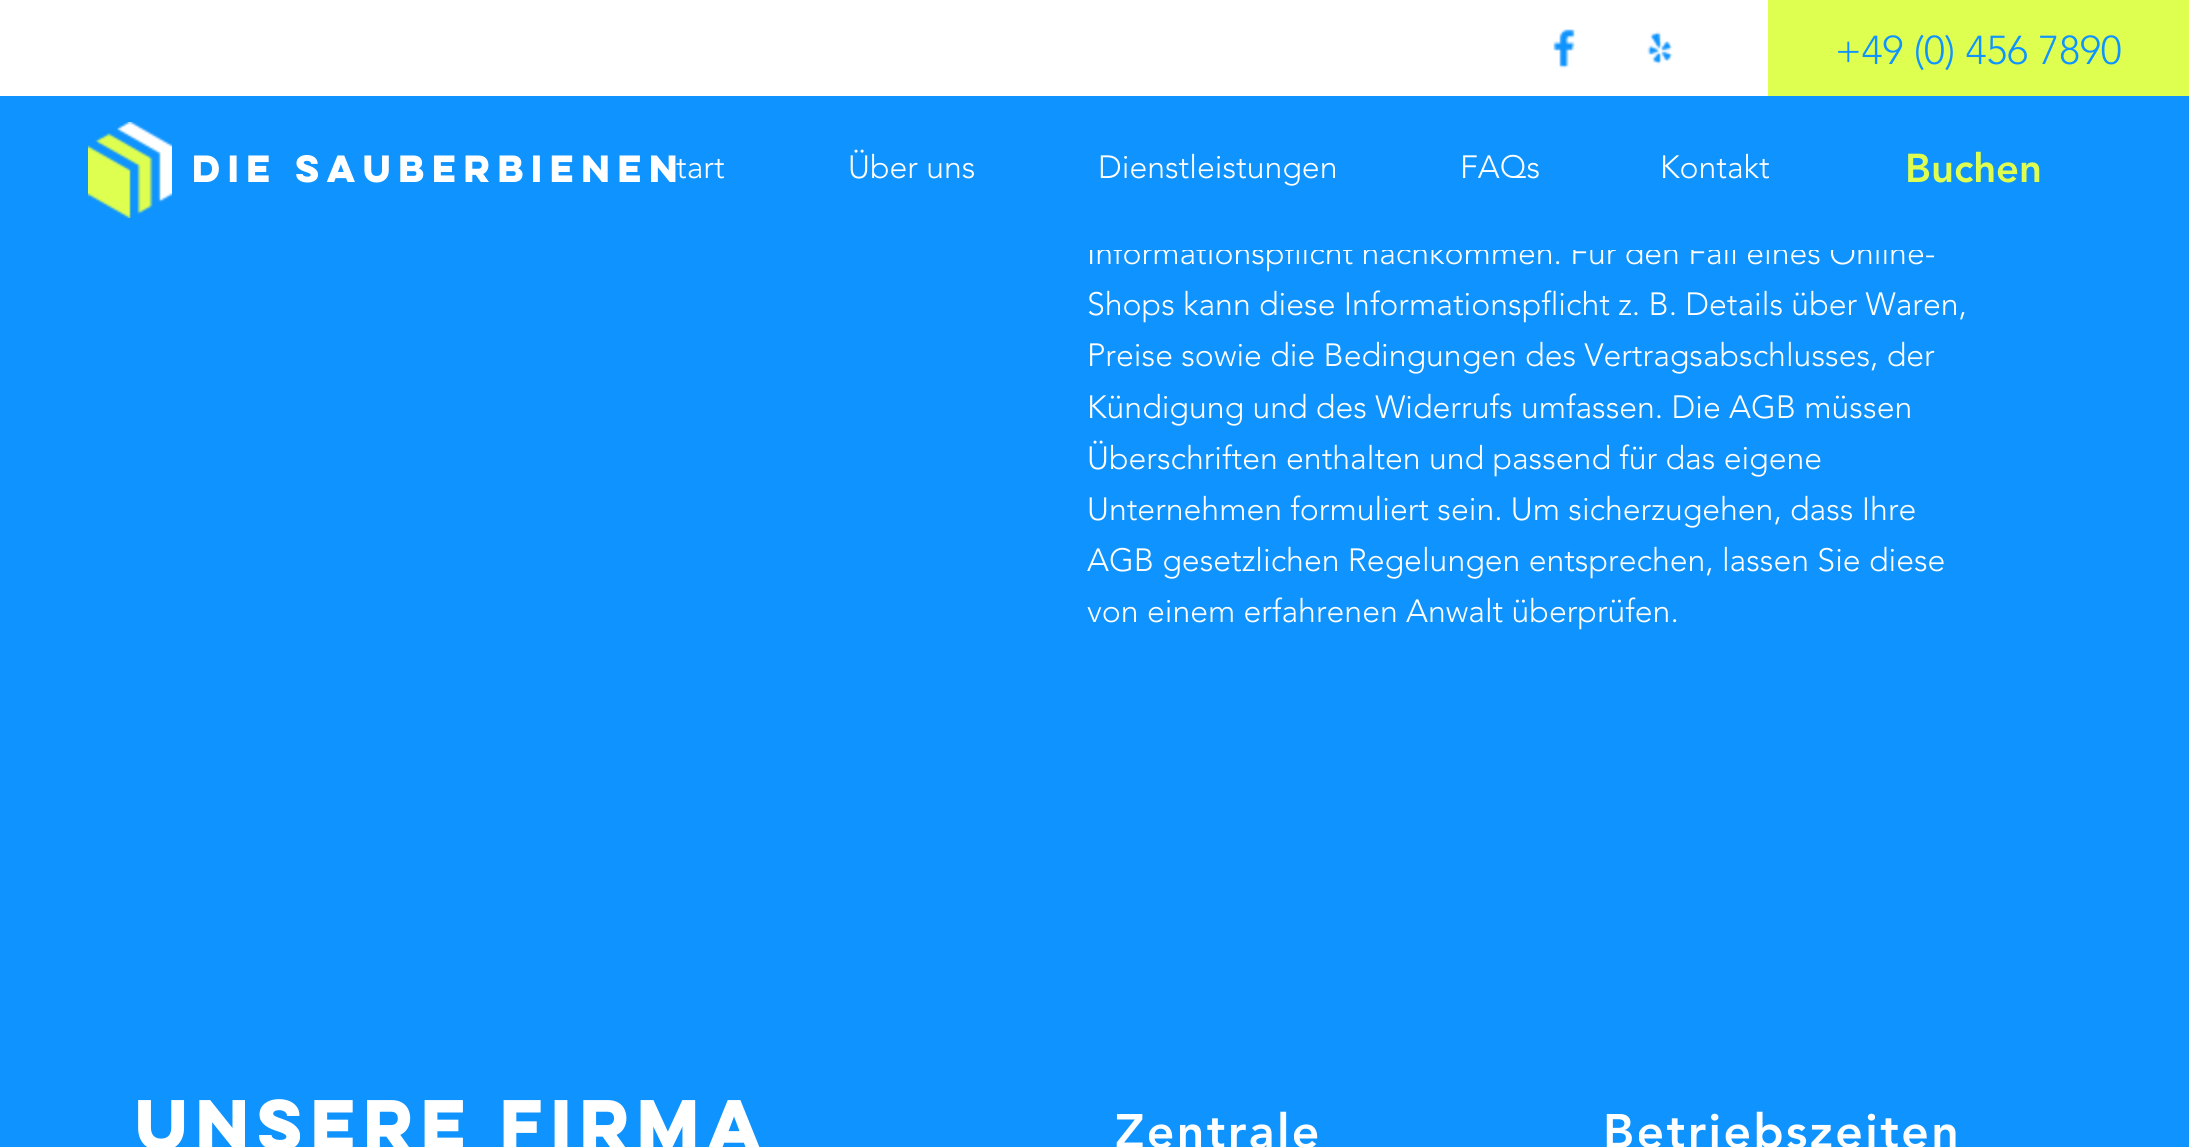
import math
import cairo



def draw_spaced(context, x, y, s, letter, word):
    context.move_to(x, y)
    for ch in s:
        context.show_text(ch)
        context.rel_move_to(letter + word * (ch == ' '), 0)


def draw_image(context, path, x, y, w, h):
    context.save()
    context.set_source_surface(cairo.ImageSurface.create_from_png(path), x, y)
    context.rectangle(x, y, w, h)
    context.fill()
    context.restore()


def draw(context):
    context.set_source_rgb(15 / 255, 147 / 255, 254 / 255)
    context.paint()
    context.set_source_rgb(1, 1, 1)
    context.rectangle(0, 0, 1768, 96)
    context.fill()
    draw_image(context, "images/1.png", 88, 122, 84, 96)
    draw_image(context, "images/2.png", 1553, 29, 22, 40)
    draw_image(context, "images/3.png", 1647, 31, 26, 34)
    context.set_source_rgb(222 / 255, 1, 79 / 255)
    context.rectangle(1768, 0, 421, 96)
    context.fill()
    context.select_font_face("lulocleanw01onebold", cairo.FontSlant.NORMAL, cairo.FontWeight.BOLD)
    context.set_font_size(34)
    context.set_source_rgb(1, 1, 1)
    context.move_to(192, 182)
    context.show_text("Die Sauberbienen")
    context.select_font_face("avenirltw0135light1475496 Light")
    context.set_font_size(40)
    context.set_source_rgb(15 / 255, 147 / 255, 254 / 255)
    context.move_to(1835, 64)
    context.show_text("+49 (0) 456 7890")
    context.set_font_size(32)
    context.set_source_rgb(1, 1, 1)
    context.move_to(676, 178)
    context.show_text("tart")
    context.move_to(848, 178)
    context.show_text("Über uns")
    context.move_to(1098, 178)
    context.show_text("Dienstleistungen")
    context.move_to(1460, 178)
    context.show_text("FAQs")
    context.move_to(1660, 178)
    context.show_text("Kontakt")
    context.select_font_face("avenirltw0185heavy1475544 Black")
    context.set_font_size(40)
    context.set_source_rgb(222 / 255, 1, 79 / 255)
    context.move_to(1905, 182)
    context.show_text("Buchen")
    context.select_font_face("avenirltw0135light1475496 Light")
    context.set_font_size(32)
    context.set_source_rgb(1, 1, 1)
    context.move_to(1087, 264)
    context.show_text("Informationspflicht nachkommen. Für den Fall eines Online-")
    context.set_source_rgb(15 / 255, 147 / 255, 254 / 255)
    context.rectangle(1090, 239, 830, 11)
    context.fill()
    context.set_source_rgb(1, 1, 1)
    context.move_to(1087, 315)
    context.show_text("Shops kann diese Informationspflicht z. B. Details über Waren,")
    context.move_to(1087, 366)
    context.show_text("Preise sowie die Bedingungen des Vertragsabschlusses, der")
    context.move_to(1087, 418)
    context.show_text("Kündigung und des Widerrufs umfassen. Die AGB müssen")
    context.move_to(1087, 469)
    context.show_text("Überschriften enthalten und passend für das eigene")
    context.move_to(1087, 520)
    context.show_text("Unternehmen formuliert sein. Um sicherzugehen, dass Ihre")
    context.move_to(1087, 571)
    context.show_text("AGB gesetzlichen Regelungen entsprechen, lassen Sie diese")
    context.move_to(1087, 622)
    context.show_text("von einem erfahrenen Anwalt überprüfen.")
    context.select_font_face("lulocleanw01onebold", cairo.FontSlant.NORMAL, cairo.FontWeight.BOLD)
    context.set_font_size(64)
    draw_spaced(context, 135, 1150, "Unsere Firma", -6.4, 0)
    context.select_font_face("avenirltw0185heavy1475544 Black")
    context.set_font_size(48)
    draw_spaced(context, 1115, 1148, "Zentrale", 2.4, 0)
    draw_spaced(context, 1603, 1148, "Betriebszeiten", 2.4, 0)


surface = cairo.ImageSurface(cairo.Format.RGB24, 2189, 1147)
context = cairo.Context(surface)
options = cairo.FontOptions()
options.set_hint_metrics(cairo.HintMetrics.OFF)
options.set_hint_style(cairo.HintStyle.NONE)
context.set_font_options(options)
context.set_miter_limit(4)
draw(context)
surface.write_to_png("out.png")
